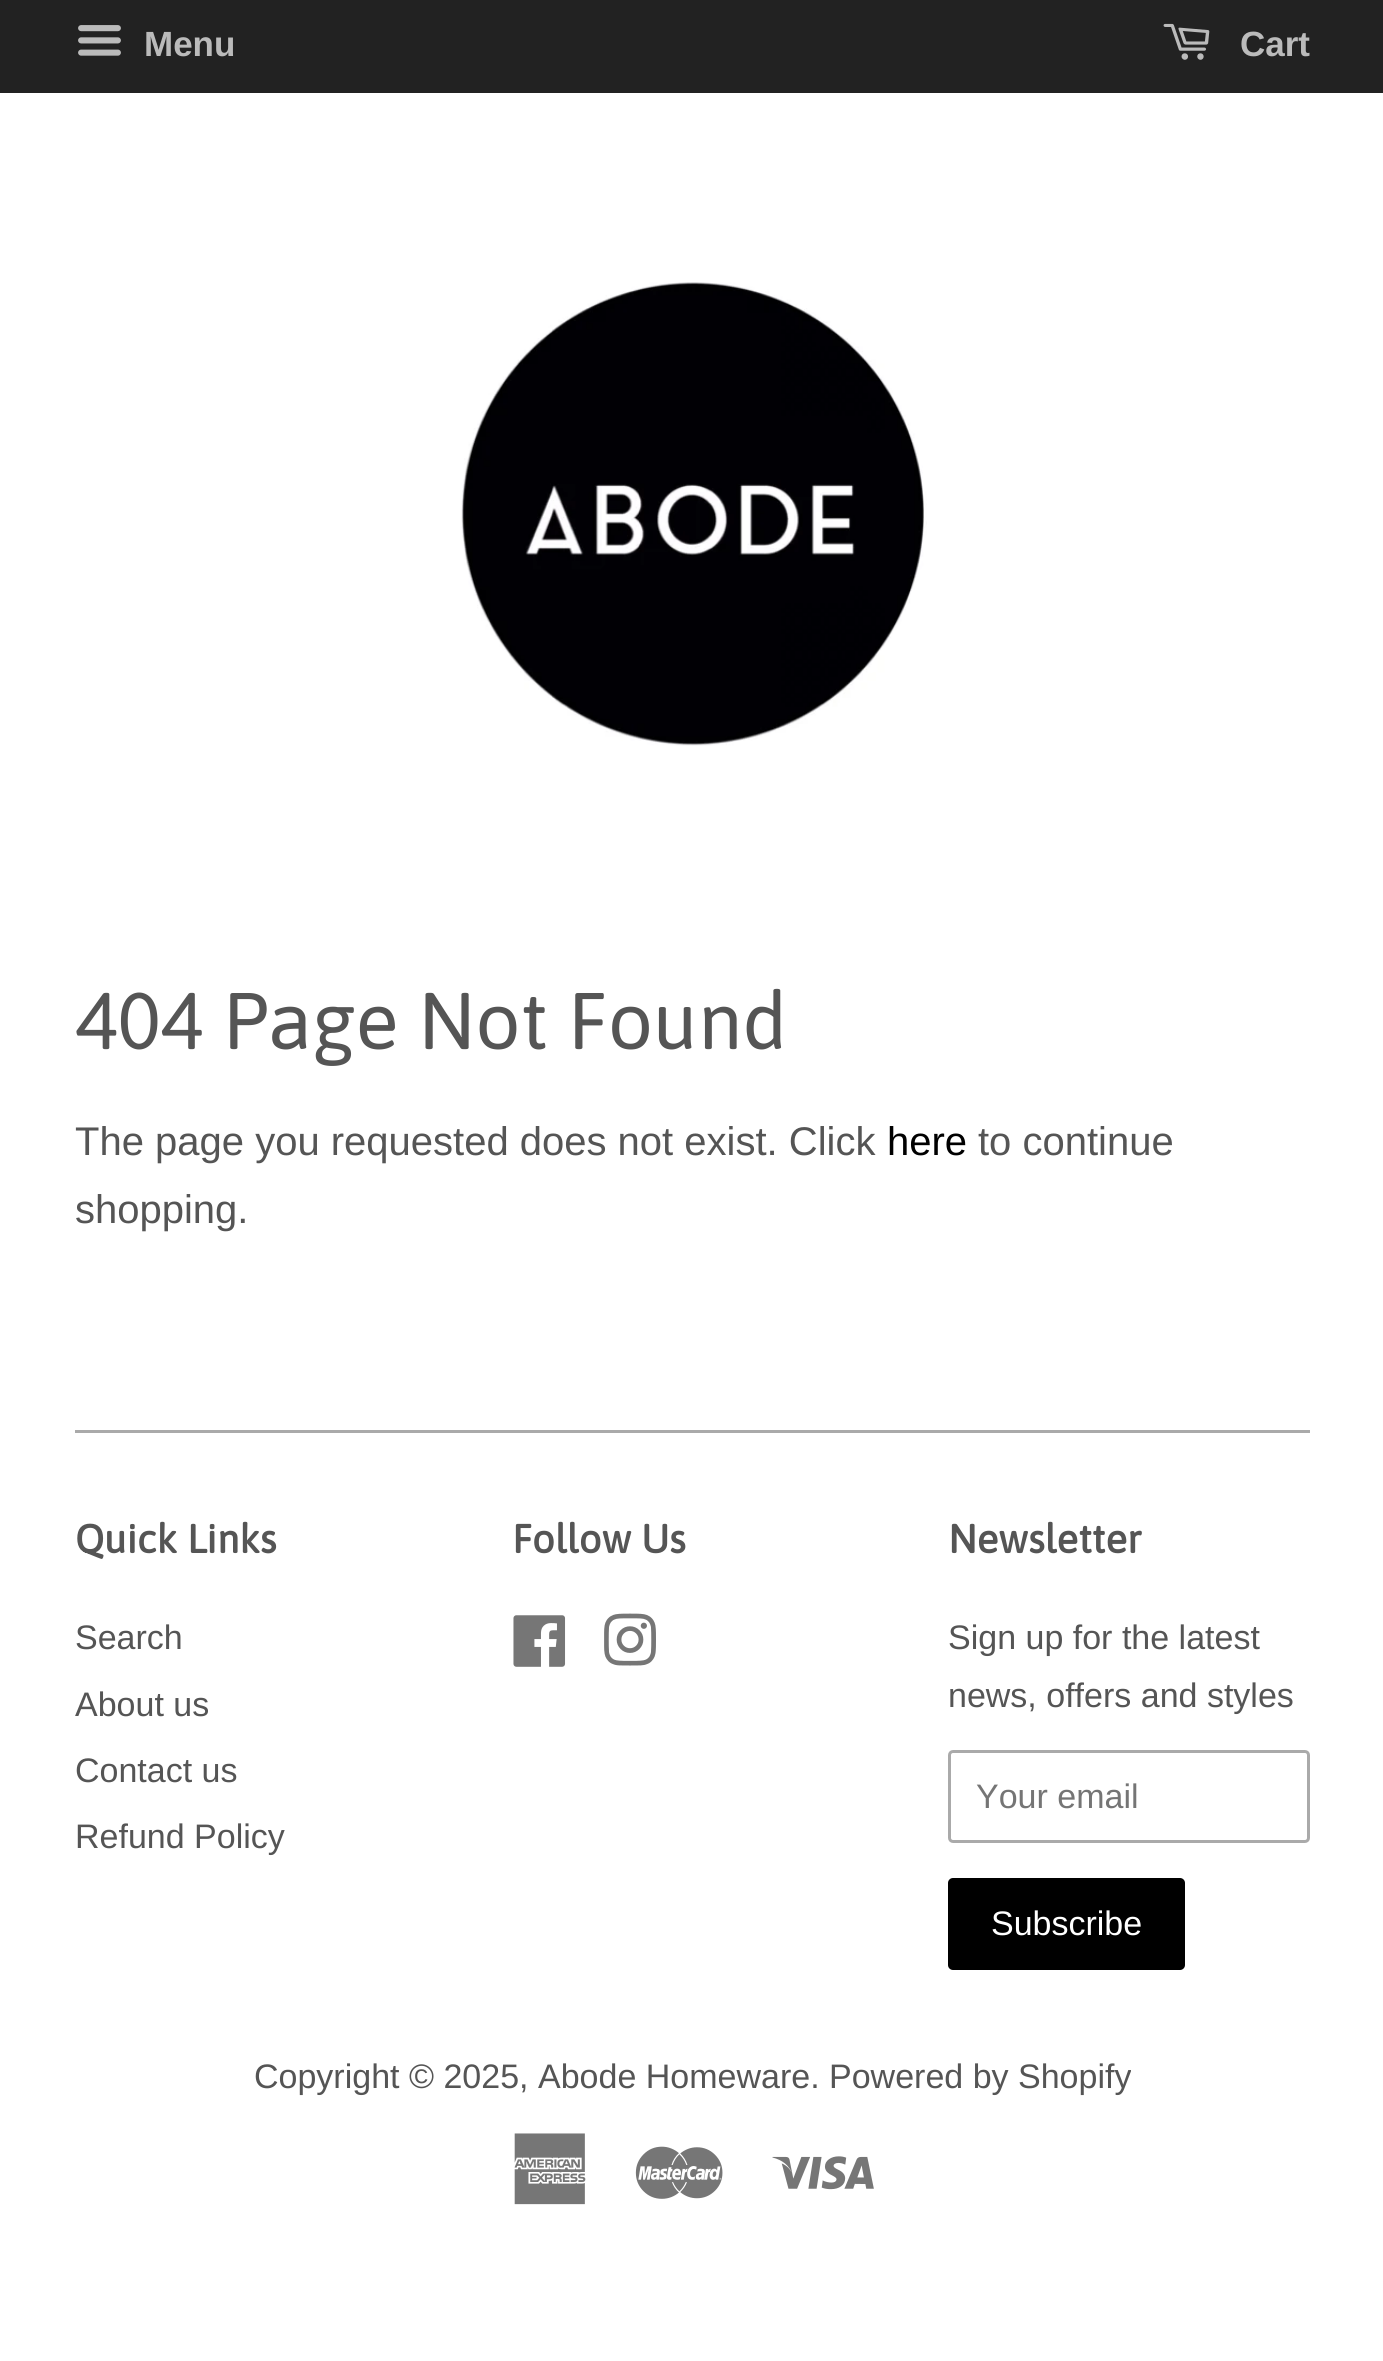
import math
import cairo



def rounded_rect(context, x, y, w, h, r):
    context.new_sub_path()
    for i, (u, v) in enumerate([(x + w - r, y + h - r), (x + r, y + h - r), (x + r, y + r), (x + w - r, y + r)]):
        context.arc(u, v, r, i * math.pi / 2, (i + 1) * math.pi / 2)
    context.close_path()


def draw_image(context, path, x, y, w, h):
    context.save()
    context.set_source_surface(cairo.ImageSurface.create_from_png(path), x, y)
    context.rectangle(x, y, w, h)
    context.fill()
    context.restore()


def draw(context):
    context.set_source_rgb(1, 1, 1)
    context.paint()
    context.set_source_rgb(34 / 255, 34 / 255, 34 / 255)
    context.rectangle(0, 0, 1383, 93)
    context.fill()
    draw_image(context, "images/1.png", 78, 25, 43, 31)
    draw_image(context, "images/2.png", 1163, 23, 47, 37)
    draw_image(context, "images/3.png", 461, 282, 466, 464)
    context.set_source_rgb(170 / 255, 170 / 255, 170 / 255)
    context.rectangle(75, 1430, 1235, 3)
    context.fill()
    draw_image(context, "images/4.png", 513, 1615, 53, 52)
    draw_image(context, "images/5.png", 604, 1613, 52, 53)
    rounded_rect(context, 949.5, 1751.5, 359, 90, 3.5)
    context.set_line_width(3)
    context.stroke()
    context.set_source_rgb(0, 0, 0)
    rounded_rect(context, 948, 1878, 237, 92, 5)
    context.fill()
    draw_image(context, "images/6.png", 514, 2133, 72, 72)
    draw_image(context, "images/7.png", 635, 2146, 88, 53)
    draw_image(context, "images/8.png", 772, 2156, 102, 34)
    context.select_font_face("Liberation Sans", cairo.FontSlant.NORMAL, cairo.FontWeight.BOLD)
    context.set_font_size(35)
    context.set_source_rgb(187 / 255, 187 / 255, 187 / 255)
    context.move_to(144, 56)
    context.show_text("Menu")
    context.move_to(1240, 56)
    context.show_text("Cart")
    context.select_font_face("Asap")
    context.set_font_size(80)
    context.set_source_rgb(85 / 255, 85 / 255, 85 / 255)
    context.move_to(75, 1049)
    context.show_text("404 Page Not Found")
    context.select_font_face("Liberation Sans")
    context.set_font_size(40)
    context.move_to(75, 1155)
    context.show_text("The page you requested does not exist. Click")
    context.set_source_rgb(0, 0, 0)
    context.move_to(887, 1155)
    context.show_text("here")
    context.set_source_rgb(85 / 255, 85 / 255, 85 / 255)
    context.move_to(978, 1155)
    context.show_text("to continue")
    context.move_to(75, 1223)
    context.show_text("shopping.")
    context.select_font_face("Asap", cairo.FontSlant.NORMAL, cairo.FontWeight.BOLD)
    context.move_to(75, 1553)
    context.show_text("Quick Links")
    context.select_font_face("Liberation Sans")
    context.set_font_size(34)
    context.move_to(75, 1649)
    context.show_text("Search")
    context.move_to(75, 1716)
    context.show_text("About us")
    context.move_to(75, 1782)
    context.show_text("Contact us")
    context.move_to(75, 1848)
    context.show_text("Refund Policy")
    context.select_font_face("Asap", cairo.FontSlant.NORMAL, cairo.FontWeight.BOLD)
    context.set_font_size(40)
    context.move_to(512, 1553)
    context.show_text("Follow Us")
    context.move_to(948, 1553)
    context.show_text("Newsletter")
    context.select_font_face("Liberation Sans")
    context.set_font_size(34)
    context.move_to(948, 1649)
    context.show_text("Sign up for the latest")
    context.move_to(948, 1707)
    context.show_text("news, offers and styles")
    context.set_source_rgb(117 / 255, 117 / 255, 117 / 255)
    context.move_to(976, 1808)
    context.show_text("Your email")
    context.set_source_rgb(1, 1, 1)
    context.move_to(991, 1935)
    context.show_text("Subscribe")
    context.set_source_rgb(85 / 255, 85 / 255, 85 / 255)
    context.move_to(254, 2088)
    context.show_text("Copyright © 2025, Abode Homeware. Powered by Shopify")


surface = cairo.ImageSurface(cairo.Format.RGB24, 1383, 2361)
context = cairo.Context(surface)
options = cairo.FontOptions()
options.set_hint_metrics(cairo.HintMetrics.OFF)
options.set_hint_style(cairo.HintStyle.NONE)
context.set_font_options(options)
context.set_miter_limit(4)
draw(context)
surface.write_to_png("out.png")
